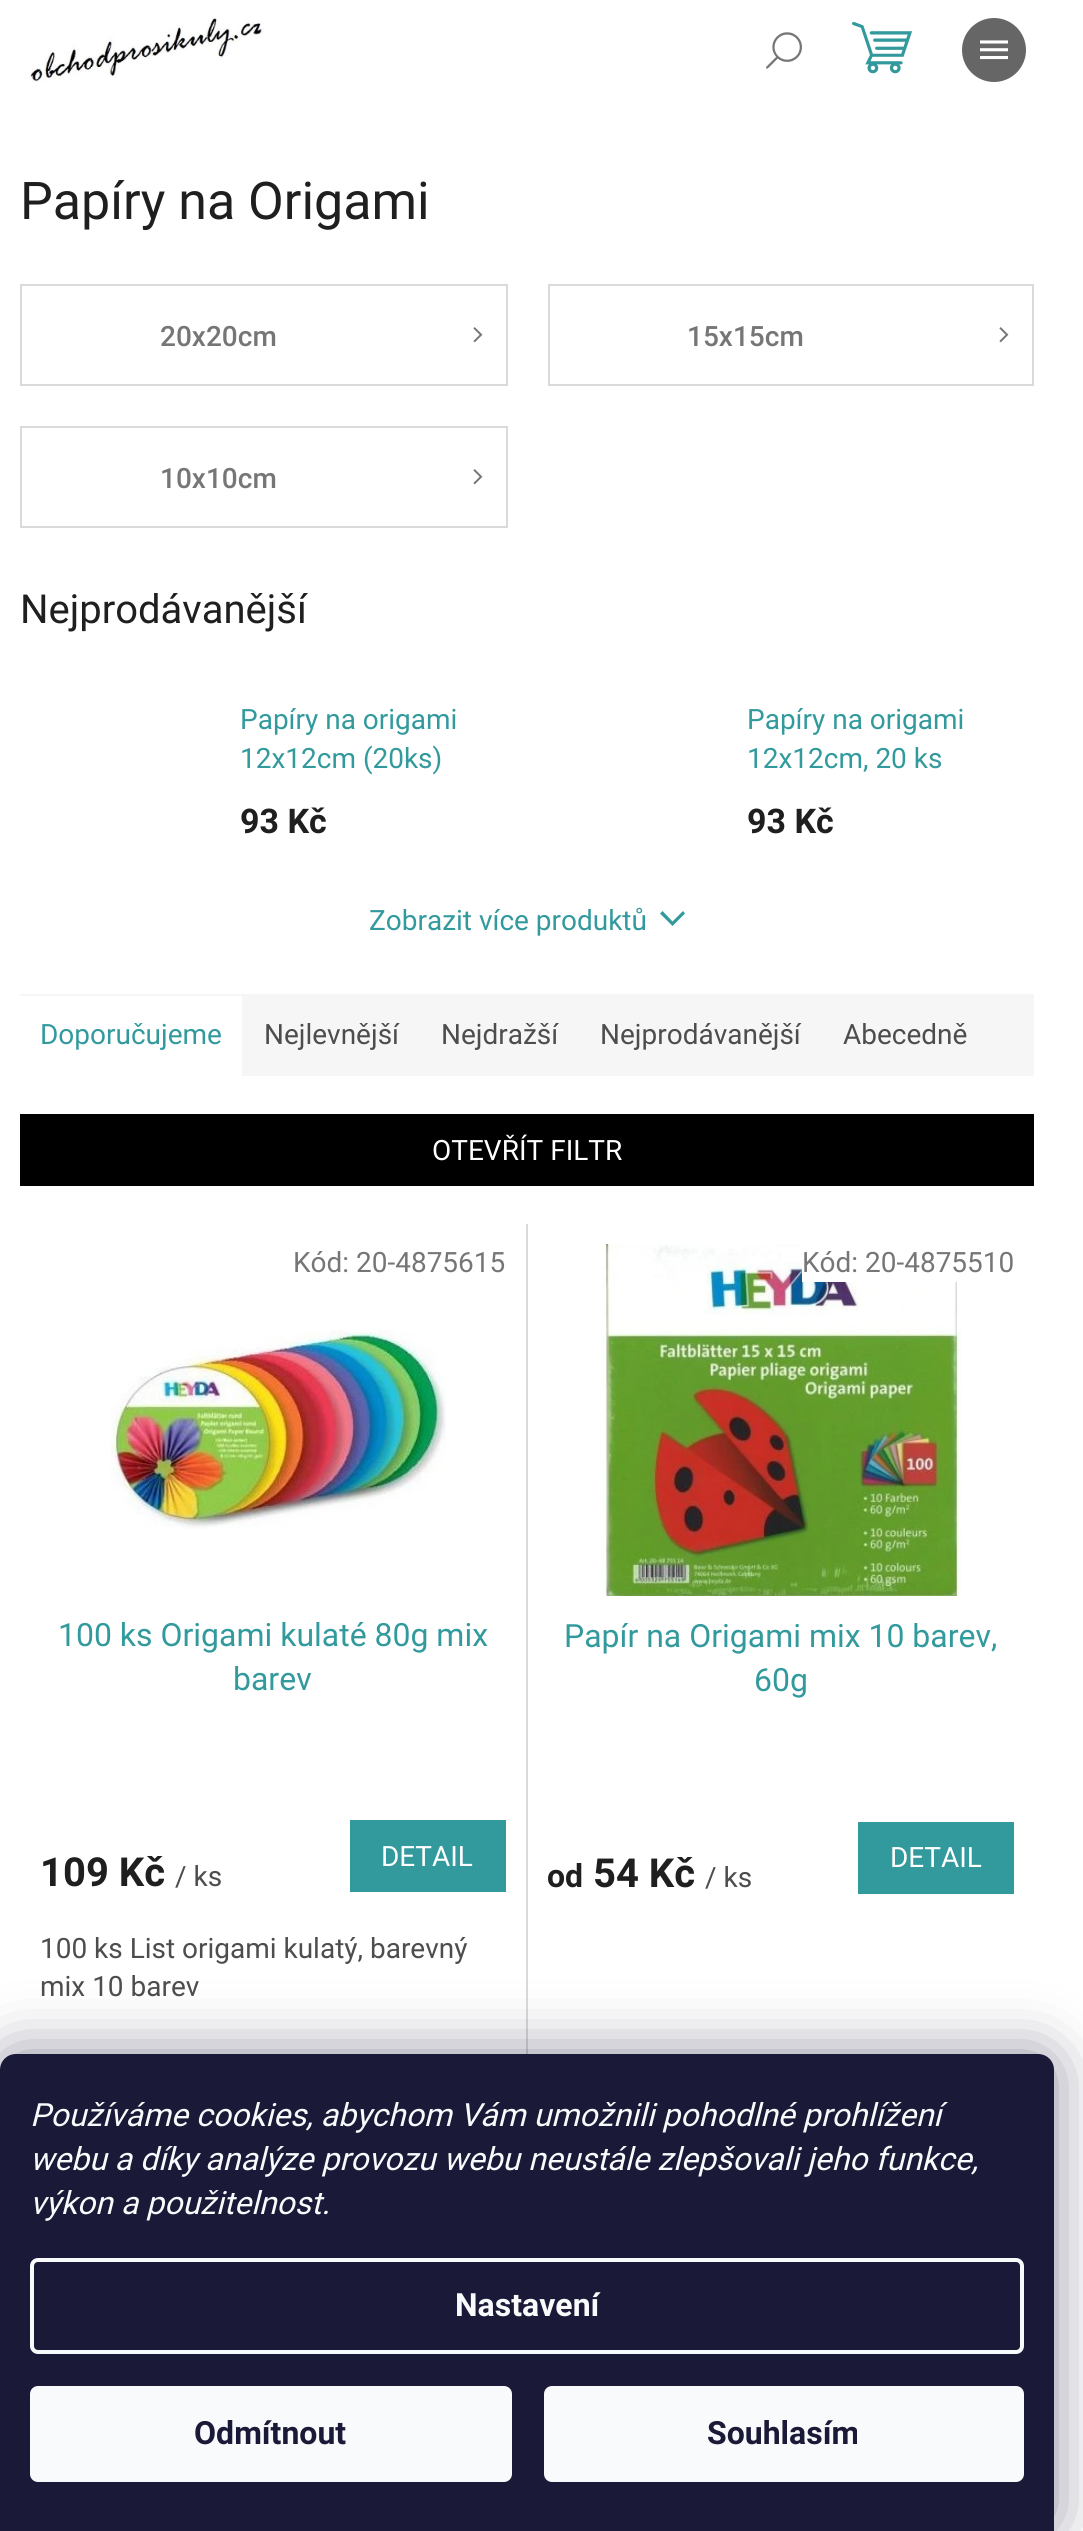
import math
import cairo



def rounded_rect(context, x, y, w, h, r):
    context.new_sub_path()
    for i, (u, v) in enumerate([(x + w - r, y + h - r), (x + r, y + h - r), (x + r, y + r), (x + w - r, y + r)]):
        context.arc(u, v, r, i * math.pi / 2, (i + 1) * math.pi / 2)
    context.close_path()


def draw_shadow(context, x, y, w, h, r, blur, alpha):
    context.push_group_with_content(cairo.Content.ALPHA)
    context.set_operator(cairo.Operator.SOURCE)
    for i in range(15, -16, -2):
        e = blur * i / 6
        if min(w, h) + 2 * e > 0:
            context.set_source_rgba(0, 0, 0, alpha * math.erfc((i - 1) / 8.5) / 2)
            rounded_rect(context, x - e, y - e, w + 2 * e, h + 2 * e, max(0, min(r + e + blur * .6, min(w, h) / 2 + e)))
            context.fill()
    context.mask(context.pop_group())


def draw_image(context, path, x, y, w, h):
    context.save()
    context.set_source_surface(cairo.ImageSurface.create_from_png(path), x, y)
    context.rectangle(x, y, w, h)
    context.fill()
    context.restore()


def draw(context):
    context.set_source_rgb(1, 1, 1)
    context.paint()
    draw_image(context, "images/1.png", 29, 17, 235, 65)
    draw_image(context, "images/2.png", 852, 21, 60, 53)
    draw_image(context, "images/3.png", 766, 32, 36, 37)
    context.set_source_rgb(102 / 255, 102 / 255, 102 / 255)
    context.arc(994, 50, 32, 0, 2 * math.pi)
    context.fill()
    draw_image(context, "images/4.png", 980, 40, 28, 20)
    context.rectangle(21, 285, 486, 100)
    context.set_source_rgb(218 / 255, 218 / 255, 218 / 255)
    context.stroke()
    draw_image(context, "images/5.png", 473, 327, 10, 16)
    context.rectangle(549, 285, 484, 100)
    context.stroke()
    draw_image(context, "images/5.png", 999, 327, 10, 16)
    context.rectangle(21, 427, 486, 100)
    context.stroke()
    draw_image(context, "images/5.png", 473, 469, 10, 16)
    context.set_source_rgb(50 / 255, 154 / 255, 157 / 255)
    context.new_path()
    context.move_to(660, 913.5)
    context.line_to(662.5, 911)
    context.line_to(672.5, 921.5)
    context.line_to(683, 911)
    context.line_to(685, 913.5)
    context.line_to(672.5, 926)
    context.close_path()
    context.fill()
    context.set_source_rgb(246 / 255, 246 / 255, 246 / 255)
    context.rectangle(20, 994, 1014, 82)
    context.fill()
    context.set_source_rgb(1, 1, 1)
    context.rectangle(20, 996, 222, 80)
    context.fill()
    context.set_source_rgb(0, 0, 0)
    context.rectangle(20, 1114, 1014, 72)
    context.fill()
    context.set_source_rgb(218 / 255, 218 / 255, 218 / 255)
    context.rectangle(526, 1224, 2, 830)
    context.fill()
    draw_image(context, "images/6.png", 110, 1330, 336, 199)
    context.set_source_rgb(50 / 255, 154 / 255, 157 / 255)
    context.rectangle(350, 1820, 156, 72)
    context.fill()
    draw_image(context, "images/7.png", 601, 1244, 361, 352)
    context.set_source_rgb(1, 1, 1)
    context.rectangle(802, 1244, 156, 38)
    context.fill()
    context.set_source_rgb(50 / 255, 154 / 255, 157 / 255)
    context.rectangle(858, 1822, 156, 72)
    context.fill()
    context.set_source_rgb(27 / 255, 25 / 255, 57 / 255)
    draw_shadow(context, 0, 2054, 1054, 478, 16, 30, 0.5)
    context.set_source_rgb(26 / 255, 25 / 255, 55 / 255)
    context.new_path()
    context.move_to(16, 2054)
    context.line_to(1038, 2054)
    context.curve_to(1047, 2054, 1054, 2061, 1054, 2070)
    context.line_to(1054, 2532)
    context.line_to(0, 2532)
    context.line_to(0, 2070)
    context.curve_to(0, 2061, 7, 2054, 16, 2054)
    context.close_path()
    context.fill()
    rounded_rect(context, 32, 2260, 990, 92, 6)
    context.set_source_rgb(248 / 255, 250 / 255, 251 / 255)
    context.set_line_width(4)
    context.stroke()
    rounded_rect(context, 30, 2386, 482, 96, 8)
    context.fill()
    rounded_rect(context, 544, 2386, 480, 96, 8)
    context.fill()
    context.select_font_face("Roboto")
    context.set_font_size(52)
    context.set_source_rgb(31 / 255, 31 / 255, 31 / 255)
    context.move_to(20, 219)
    context.show_text("Papíry na Origami")
    context.select_font_face("Roboto Medium")
    context.set_font_size(28)
    context.set_source_rgb(118 / 255, 118 / 255, 118 / 255)
    context.move_to(160, 346)
    context.show_text("20x20cm")
    context.move_to(687, 346)
    context.show_text("15x15cm")
    context.move_to(160, 488)
    context.show_text("10x10cm")
    context.select_font_face("Roboto")
    context.set_font_size(40)
    context.set_source_rgb(31 / 255, 31 / 255, 31 / 255)
    context.move_to(20, 623)
    context.show_text("Nejprodávanější")
    context.set_font_size(28)
    context.set_source_rgb(50 / 255, 154 / 255, 157 / 255)
    context.move_to(240, 729)
    context.show_text("Papíry na origami")
    context.move_to(240, 768)
    context.show_text("12x12cm (20ks)")
    context.select_font_face("Roboto", cairo.FontSlant.NORMAL, cairo.FontWeight.BOLD)
    context.set_font_size(34)
    context.set_source_rgb(31 / 255, 31 / 255, 31 / 255)
    context.move_to(240, 833)
    context.show_text("93 Kč")
    context.select_font_face("Roboto")
    context.set_font_size(28)
    context.set_source_rgb(50 / 255, 154 / 255, 157 / 255)
    context.move_to(747, 729)
    context.show_text("Papíry na origami")
    context.move_to(747, 768)
    context.show_text("12x12cm, 20 ks")
    context.select_font_face("Roboto", cairo.FontSlant.NORMAL, cairo.FontWeight.BOLD)
    context.set_font_size(34)
    context.set_source_rgb(31 / 255, 31 / 255, 31 / 255)
    context.move_to(747, 833)
    context.show_text("93 Kč")
    context.select_font_face("Roboto")
    context.set_font_size(28)
    context.set_source_rgb(50 / 255, 154 / 255, 157 / 255)
    context.move_to(369, 930)
    context.show_text("Zobrazit více produktů")
    context.move_to(40, 1044)
    context.show_text("Doporučujeme")
    context.set_source_rgb(77 / 255, 77 / 255, 77 / 255)
    context.move_to(264, 1044)
    context.show_text("Nejlevnější")
    context.move_to(441, 1044)
    context.show_text("Nejdražší")
    context.move_to(600, 1044)
    context.show_text("Nejprodávanější")
    context.move_to(843, 1044)
    context.show_text("Abecedně")
    context.set_source_rgb(1, 1, 1)
    context.move_to(432, 1160)
    context.show_text("OTEVŘÍT FILTR")
    context.set_source_rgb(118 / 255, 118 / 255, 118 / 255)
    context.move_to(293, 1272)
    context.show_text("Kód: 20-4875615")
    context.set_font_size(32)
    context.set_source_rgb(50 / 255, 154 / 255, 157 / 255)
    context.move_to(58, 1646)
    context.show_text("100 ks Origami kulaté 80g mix")
    context.move_to(233, 1690)
    context.show_text("barev")
    context.select_font_face("Roboto", cairo.FontSlant.NORMAL, cairo.FontWeight.BOLD)
    context.set_font_size(40)
    context.set_source_rgb(31 / 255, 31 / 255, 31 / 255)
    context.move_to(40, 1886)
    context.show_text("109 Kč")
    context.select_font_face("Roboto")
    context.set_font_size(28)
    context.set_source_rgb(77 / 255, 77 / 255, 77 / 255)
    context.move_to(175, 1886)
    context.show_text("/ ks")
    context.set_source_rgb(1, 1, 1)
    context.move_to(381, 1866)
    context.show_text("DETAIL")
    context.set_source_rgb(77 / 255, 77 / 255, 77 / 255)
    context.move_to(40, 1958)
    context.show_text("100 ks List origami kulatý, barevný")
    context.move_to(40, 1996)
    context.show_text("mix 10 barev")
    context.set_source_rgb(118 / 255, 118 / 255, 118 / 255)
    context.move_to(802, 1272)
    context.show_text("Kód: 20-4875510")
    context.set_font_size(32)
    context.set_source_rgb(50 / 255, 154 / 255, 157 / 255)
    context.move_to(564, 1647)
    context.show_text("Papír na Origami mix 10 barev,")
    context.move_to(754, 1691)
    context.show_text("60g")
    context.select_font_face("Roboto", cairo.FontSlant.NORMAL, cairo.FontWeight.BOLD)
    context.set_source_rgb(31 / 255, 31 / 255, 31 / 255)
    context.move_to(547, 1887)
    context.show_text("od")
    context.set_font_size(40)
    context.move_to(593, 1887)
    context.show_text("54 Kč")
    context.select_font_face("Roboto")
    context.set_font_size(28)
    context.set_source_rgb(77 / 255, 77 / 255, 77 / 255)
    context.move_to(705, 1887)
    context.show_text("/ ks")
    context.set_source_rgb(1, 1, 1)
    context.move_to(890, 1867)
    context.show_text("DETAIL")
    context.select_font_face("Roboto", cairo.FontSlant.ITALIC)
    context.set_font_size(32)
    context.set_source_rgb(248 / 255, 250 / 255, 251 / 255)
    context.move_to(30, 2126)
    context.show_text("Používáme cookies, abychom Vám umožnili pohodlné prohlížení")
    context.move_to(30, 2170)
    context.show_text("webu a díky analýze provozu webu neustále zlepšovali jeho funkce,")
    context.move_to(30, 2214)
    context.show_text("výkon a použitelnost.")
    context.select_font_face("Roboto", cairo.FontSlant.NORMAL, cairo.FontWeight.BOLD)
    context.move_to(455, 2316)
    context.show_text("Nastavení")
    context.set_source_rgb(26 / 255, 25 / 255, 55 / 255)
    context.move_to(194, 2444)
    context.show_text("Odmítnout")
    context.move_to(707, 2444)
    context.show_text("Souhlasím")


surface = cairo.ImageSurface(cairo.Format.RGB24, 1083, 2531)
context = cairo.Context(surface)
options = cairo.FontOptions()
options.set_hint_metrics(cairo.HintMetrics.OFF)
options.set_hint_style(cairo.HintStyle.NONE)
context.set_font_options(options)
context.set_miter_limit(4)
draw(context)
surface.write_to_png("out.png")
